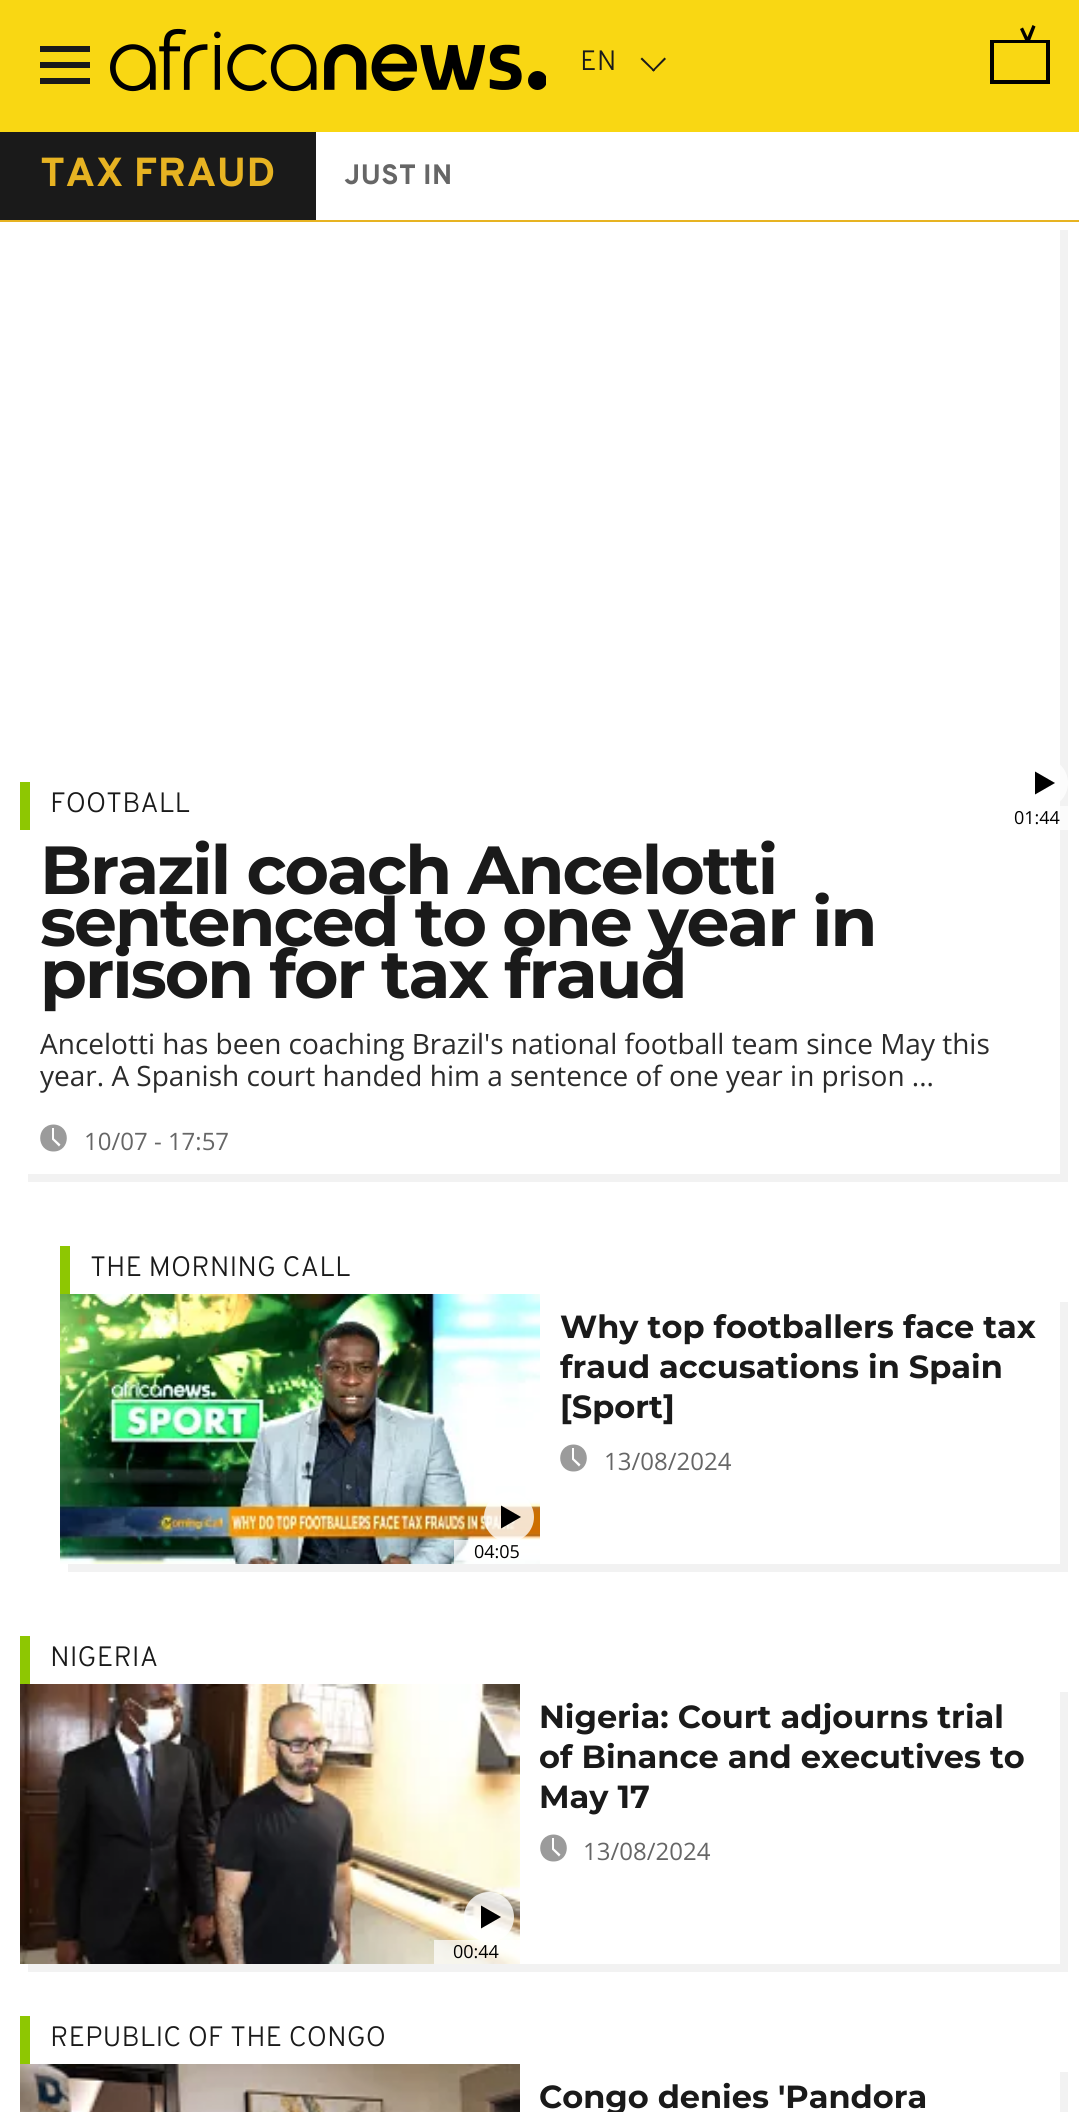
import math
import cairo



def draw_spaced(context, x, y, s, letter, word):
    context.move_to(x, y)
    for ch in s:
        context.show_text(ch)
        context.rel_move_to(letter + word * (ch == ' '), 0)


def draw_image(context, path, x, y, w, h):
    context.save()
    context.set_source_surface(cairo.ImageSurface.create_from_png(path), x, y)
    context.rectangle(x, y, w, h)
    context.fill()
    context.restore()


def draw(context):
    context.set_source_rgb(1, 1, 1)
    context.paint()
    context.set_source_rgb(249 / 255, 215 / 255, 19 / 255)
    context.rectangle(0, 0, 1079, 132)
    context.fill()
    context.set_source_rgb(26 / 255, 26 / 255, 26 / 255)
    context.rectangle(40, 62, 50, 6)
    context.fill()
    context.rectangle(40, 46, 50, 6)
    context.fill()
    context.rectangle(40, 78, 50, 6)
    context.fill()
    draw_image(context, "images/1.png", 110, 28, 436, 64)
    context.new_path()
    context.move_to(652, 70.5)
    context.line_to(664.5, 57.5)
    context.line_to(666, 59)
    context.line_to(653.5, 71.5)
    context.close_path()
    context.fill()
    context.new_path()
    context.move_to(640.5, 59)
    context.line_to(642, 57.5)
    context.line_to(655, 70.5)
    context.line_to(653.5, 71.5)
    context.close_path()
    context.fill()
    context.set_source_rgb(0, 0, 0)
    context.new_path()
    context.move_to(1050, 84)
    context.line_to(990, 84)
    context.line_to(990, 40)
    context.line_to(1050, 40)
    context.close_path()
    context.move_to(994, 80)
    context.line_to(1046, 80)
    context.line_to(1046, 43)
    context.line_to(994, 43)
    context.close_path()
    context.fill()
    context.new_path()
    context.move_to(1026, 42)
    context.line_to(1020, 29)
    context.line_to(1023, 27.5)
    context.line_to(1027.5, 37)
    context.line_to(1032.5, 25)
    context.line_to(1035.5, 26.5)
    context.line_to(1029.5, 42)
    context.close_path()
    context.fill()
    context.set_source_rgb(231 / 255, 179 / 255, 34 / 255)
    context.rectangle(0, 220, 1079, 2)
    context.fill()
    context.set_source_rgb(26 / 255, 26 / 255, 26 / 255)
    context.rectangle(0, 132, 316, 88)
    context.fill()
    context.set_source_rgb(242 / 255, 242 / 255, 242 / 255)
    context.new_path()
    context.move_to(28, 1174)
    context.line_to(28, 1182)
    context.line_to(1068, 1182)
    context.line_to(1068, 230)
    context.line_to(1060, 230)
    context.line_to(1060, 1174)
    context.close_path()
    context.fill()
    context.set_source_rgb(142 / 255, 199 / 255, 2 / 255)
    context.rectangle(20, 782, 10, 48)
    context.fill()
    context.set_source_rgb(155 / 255, 155 / 255, 155 / 255)
    context.new_path()
    context.move_to(53.5, 1124.5)
    context.curve_to(35.5, 1125, 36, 1151.5, 53.5, 1151.5)
    context.curve_to(71, 1151.5, 71.5, 1125, 53.5, 1124.5)
    context.close_path()
    context.move_to(59, 1146.5)
    context.line_to(52, 1139.5)
    context.line_to(52, 1128)
    context.line_to(54, 1128)
    context.line_to(54, 1138.5)
    context.line_to(60.5, 1144.5)
    context.close_path()
    context.fill()
    context.set_source_rgba(1, 1, 1, 0.7)
    context.rectangle(1060, 806, 8, 24)
    context.fill()
    context.set_source_rgba(1, 1, 1, 0.8)
    context.arc(1043, 783, 25, 0, 2 * math.pi)
    context.fill()
    context.set_source_rgb(0, 0, 0)
    context.new_path()
    context.move_to(1055, 783)
    context.line_to(1035, 794.5)
    context.line_to(1035, 771.5)
    context.close_path()
    context.fill()
    context.set_source_rgb(242 / 255, 242 / 255, 242 / 255)
    context.new_path()
    context.move_to(68, 1564)
    context.line_to(68, 1572)
    context.line_to(1068, 1572)
    context.line_to(1068, 1302)
    context.line_to(1060, 1302)
    context.line_to(1060, 1564)
    context.close_path()
    context.fill()
    context.set_source_rgb(142 / 255, 199 / 255, 2 / 255)
    context.rectangle(60, 1246, 10, 48)
    context.fill()
    context.set_source_rgb(155 / 255, 155 / 255, 155 / 255)
    context.new_path()
    context.move_to(573.5, 1444.5)
    context.curve_to(555.5, 1445, 556, 1471.5, 573.5, 1471.5)
    context.curve_to(591, 1471.5, 591.5, 1445, 573.5, 1444.5)
    context.close_path()
    context.move_to(579, 1466.5)
    context.line_to(572, 1459.5)
    context.line_to(572, 1448)
    context.line_to(574, 1448)
    context.line_to(574, 1458.5)
    context.line_to(580.5, 1464.5)
    context.close_path()
    context.fill()
    draw_image(context, "images/2.png", 60, 1294, 480, 270)
    context.set_source_rgba(1, 1, 1, 0.7)
    context.rectangle(454, 1540, 86, 24)
    context.fill()
    context.set_source_rgba(1, 1, 1, 0.8)
    context.arc(509, 1517, 25, 0, 2 * math.pi)
    context.fill()
    context.set_source_rgb(0, 0, 0)
    context.new_path()
    context.move_to(521, 1517)
    context.line_to(501, 1528.5)
    context.line_to(501, 1505.5)
    context.close_path()
    context.fill()
    context.set_source_rgb(242 / 255, 242 / 255, 242 / 255)
    context.new_path()
    context.move_to(28, 1964)
    context.line_to(28, 1972)
    context.line_to(1068, 1972)
    context.line_to(1068, 1692)
    context.line_to(1060, 1692)
    context.line_to(1060, 1964)
    context.close_path()
    context.fill()
    context.set_source_rgb(142 / 255, 199 / 255, 2 / 255)
    context.rectangle(20, 1636, 10, 48)
    context.fill()
    context.set_source_rgb(155 / 255, 155 / 255, 155 / 255)
    context.new_path()
    context.move_to(553.5, 1834.5)
    context.curve_to(535.5, 1835, 536, 1861.5, 553.5, 1861.5)
    context.curve_to(571, 1861.5, 571.5, 1835, 553.5, 1834.5)
    context.close_path()
    context.move_to(559, 1856.5)
    context.line_to(552, 1849.5)
    context.line_to(552, 1838)
    context.line_to(554, 1838)
    context.line_to(554, 1848.5)
    context.line_to(560.5, 1854.5)
    context.close_path()
    context.fill()
    draw_image(context, "images/3.png", 20, 1684, 500, 280)
    context.set_source_rgba(1, 1, 1, 0.7)
    context.rectangle(434, 1940, 86, 24)
    context.fill()
    context.set_source_rgba(1, 1, 1, 0.8)
    context.arc(489, 1917, 25, 0, 2 * math.pi)
    context.fill()
    context.set_source_rgb(0, 0, 0)
    context.new_path()
    context.move_to(501, 1917)
    context.line_to(481, 1928.5)
    context.line_to(481, 1905.5)
    context.close_path()
    context.fill()
    context.set_source_rgb(242 / 255, 242 / 255, 242 / 255)
    context.new_path()
    context.move_to(28, 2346)
    context.line_to(28, 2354)
    context.line_to(1068, 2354)
    context.line_to(1068, 2072)
    context.line_to(1060, 2072)
    context.line_to(1060, 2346)
    context.close_path()
    context.fill()
    context.set_source_rgb(142 / 255, 199 / 255, 2 / 255)
    context.rectangle(20, 2016, 10, 48)
    context.fill()
    draw_image(context, "images/4.png", 20, 2064, 500, 48)
    context.select_font_face("Overpass Light")
    context.set_font_size(28)
    context.set_source_rgb(26 / 255, 26 / 255, 26 / 255)
    context.move_to(580, 70)
    context.show_text("EN")
    context.select_font_face("Overpass", cairo.FontSlant.NORMAL, cairo.FontWeight.BOLD)
    context.set_font_size(40.5)
    context.set_source_rgb(231 / 255, 179 / 255, 34 / 255)
    context.move_to(40, 186)
    context.show_text("TAX FRAUD")
    context.set_font_size(28)
    context.set_source_rgb(102 / 255, 102 / 255, 102 / 255)
    context.move_to(344, 184)
    context.show_text("JUST IN")
    context.select_font_face("Overpass Light")
    context.set_source_rgb(26 / 255, 26 / 255, 26 / 255)
    context.move_to(50, 812)
    context.show_text("FOOTBALL")
    context.select_font_face("Montserrat Thin")
    context.set_font_size(68)
    draw_spaced(context, 40, 894, "Brazil coach Ancelotti", -2, 0)
    draw_spaced(context, 40, 946, "sentenced to one year in", -2, 0)
    draw_spaced(context, 40, 998, "prison for tax fraud", -2, 0)
    context.select_font_face("Open Sans")
    context.set_font_size(28)
    context.set_source_rgb(43 / 255, 43 / 255, 43 / 255)
    context.move_to(40, 1054)
    context.show_text("Ancelotti has been coaching Brazil's national football team since May this")
    context.move_to(40, 1086)
    context.show_text("year. A Spanish court handed him a sentence of one year in prison ...")
    context.set_font_size(24)
    context.set_source_rgb(102 / 255, 102 / 255, 102 / 255)
    context.move_to(84, 1150)
    context.show_text("10/07 - 17:57")
    context.set_font_size(18)
    context.set_source_rgb(0, 0, 0)
    context.move_to(1014, 824)
    context.show_text("01:44")
    context.select_font_face("Overpass Light")
    context.set_font_size(28)
    context.set_source_rgb(26 / 255, 26 / 255, 26 / 255)
    context.move_to(90, 1276)
    context.show_text("THE MORNING CALL")
    context.select_font_face("Montserrat Thin")
    context.set_font_size(32)
    context.move_to(560, 1338)
    context.show_text("Why top footballers face tax")
    context.move_to(560, 1378)
    context.show_text("fraud accusations in Spain")
    context.move_to(560, 1418)
    context.show_text("[Sport]")
    context.select_font_face("Open Sans")
    context.set_font_size(24)
    context.set_source_rgb(102 / 255, 102 / 255, 102 / 255)
    context.move_to(604, 1470)
    context.show_text("13/08/2024")
    context.set_font_size(18)
    context.set_source_rgb(0, 0, 0)
    context.move_to(474, 1558)
    context.show_text("04:05")
    context.select_font_face("Overpass Light")
    context.set_font_size(28)
    context.set_source_rgb(26 / 255, 26 / 255, 26 / 255)
    context.move_to(50, 1666)
    context.show_text("NIGERIA")
    context.select_font_face("Montserrat Thin")
    context.set_font_size(32)
    context.move_to(539, 1728)
    context.show_text("Nigeria: Court adjourns trial")
    context.move_to(539, 1768)
    context.show_text("of Binance and executives to")
    context.move_to(539, 1808)
    context.show_text("May 17")
    context.select_font_face("Open Sans")
    context.set_font_size(24)
    context.set_source_rgb(102 / 255, 102 / 255, 102 / 255)
    context.move_to(583, 1860)
    context.show_text("13/08/2024")
    context.set_font_size(18)
    context.set_source_rgb(0, 0, 0)
    context.move_to(453, 1958)
    context.show_text("00:44")
    context.select_font_face("Overpass Light")
    context.set_font_size(28)
    context.set_source_rgb(26 / 255, 26 / 255, 26 / 255)
    context.move_to(50, 2046)
    context.show_text("REPUBLIC OF THE CONGO")
    context.select_font_face("Montserrat Thin")
    context.set_font_size(32)
    context.move_to(539, 2108)
    context.show_text("Congo denies 'Pandora")


surface = cairo.ImageSurface(cairo.Format.RGB24, 1079, 2112)
context = cairo.Context(surface)
options = cairo.FontOptions()
options.set_hint_metrics(cairo.HintMetrics.OFF)
options.set_hint_style(cairo.HintStyle.NONE)
context.set_font_options(options)
context.set_miter_limit(4)
draw(context)
surface.write_to_png("out.png")
